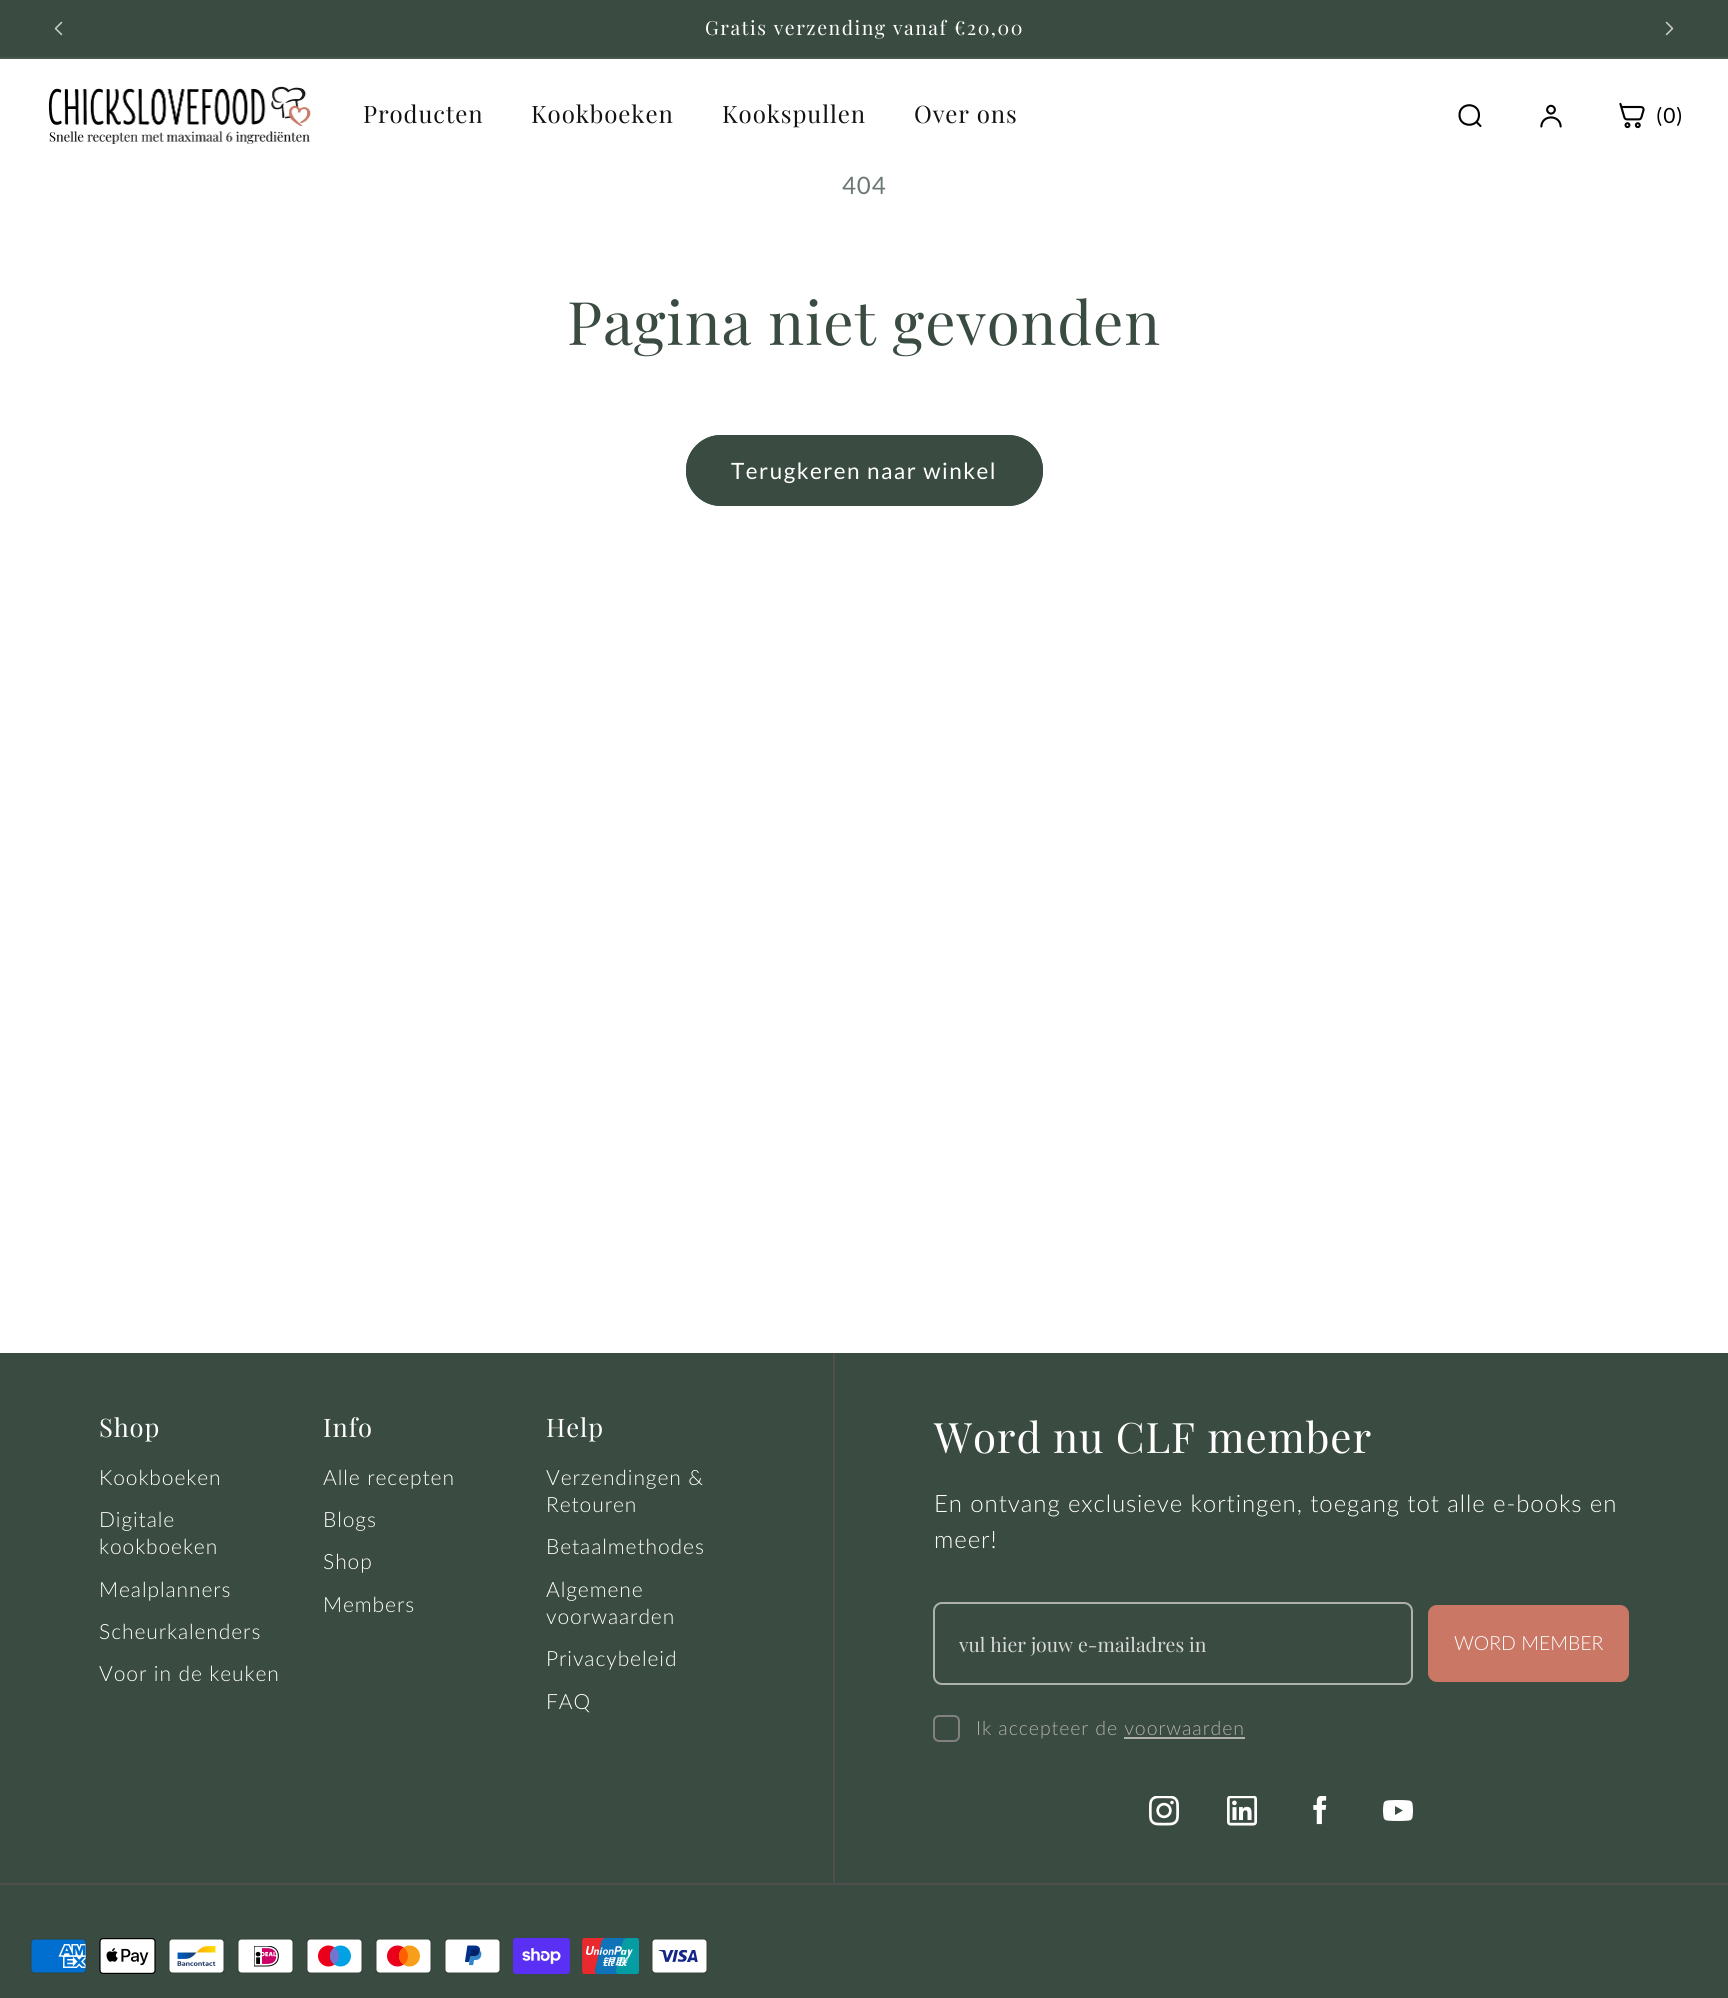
import math
import cairo



def draw_spaced(context, x, y, s, letter, word):
    context.move_to(x, y)
    for ch in s:
        context.show_text(ch)
        context.rel_move_to(letter + word * (ch == ' '), 0)


def rounded_rect(context, x, y, w, h, r):
    context.new_sub_path()
    for i, (u, v) in enumerate([(x + w - r, y + h - r), (x + r, y + h - r), (x + r, y + r), (x + w - r, y + r)]):
        context.arc(u, v, r, i * math.pi / 2, (i + 1) * math.pi / 2)
    context.close_path()


def draw_image(context, path, x, y, w, h):
    context.save()
    context.set_source_surface(cairo.ImageSurface.create_from_png(path), x, y)
    context.rectangle(x, y, w, h)
    context.fill()
    context.restore()


def draw(context):
    context.set_source_rgb(1, 1, 1)
    context.paint()
    context.set_source_rgb(58 / 255, 75 / 255, 65 / 255)
    context.rectangle(0, 0, 1728, 57)
    context.fill()
    context.set_source_rgb(74 / 255, 89 / 255, 80 / 255)
    context.rectangle(0, 57, 1728, 2)
    context.fill()
    draw_image(context, "images/1.png", 54, 21, 9, 15)
    draw_image(context, "images/2.png", 1665, 21, 9, 15)
    draw_image(context, "images/3.png", 48, 86, 263, 58)
    context.new_path()
    context.move_to(1476.5, 122)
    context.line_to(1480.5, 126)
    context.move_to(1479, 115)
    context.curve_to(1479, 128, 1459.5, 128, 1459.5, 115)
    context.curve_to(1459.5, 102, 1479, 102, 1479, 115)
    context.set_source_rgb(0, 0, 0)
    context.set_line_width(2.1)
    context.set_line_cap(cairo.LineCap.ROUND)
    context.set_line_join(cairo.LineJoin.ROUND)
    context.stroke()
    draw_image(context, "images/4.png", 1540, 104, 22, 24)
    draw_image(context, "images/5.png", 1619, 102, 26, 27)
    context.set_source_rgb(58 / 255, 75 / 255, 65 / 255)
    rounded_rect(context, 686, 435, 357, 71, 35)
    context.fill()
    rounded_rect(context, 687, 436, 355, 69, 34)
    context.set_line_width(2)
    context.set_line_cap(cairo.LineCap.BUTT)
    context.set_line_join(cairo.LineJoin.MITER)
    context.stroke()
    context.rectangle(0, 1353, 1728, 645)
    context.fill()
    context.set_source_rgb(79 / 255, 79 / 255, 79 / 255)
    context.rectangle(833, 1353, 2, 530)
    context.fill()
    rounded_rect(context, 934, 1603, 478, 81, 8)
    context.set_source_rgb(173 / 255, 178 / 255, 175 / 255)
    context.stroke()
    context.set_source_rgb(202 / 255, 120 / 255, 101 / 255)
    rounded_rect(context, 1429, 1606, 199, 75, 8)
    context.fill_preserve()
    context.stroke()
    rounded_rect(context, 934, 1716, 25, 25, 5)
    context.set_source_rgb(129 / 255, 129 / 255, 129 / 255)
    context.stroke()
    context.set_source_rgb(175 / 255, 175 / 255, 175 / 255)
    context.rectangle(1124, 1737, 121, 2)
    context.fill()
    draw_image(context, "images/6.png", 1149, 1796, 30, 30)
    draw_image(context, "images/7.png", 1227, 1796, 30, 30)
    draw_image(context, "images/8.png", 1313, 1796, 14, 29)
    draw_image(context, "images/9.png", 1383, 1800, 30, 21)
    context.set_source_rgb(79 / 255, 79 / 255, 79 / 255)
    context.rectangle(0, 1883, 1728, 2)
    context.fill()
    draw_image(context, "images/10.png", 30, 1938, 57, 36)
    draw_image(context, "images/11.png", 99, 1938, 57, 36)
    draw_image(context, "images/12.png", 168, 1938, 57, 36)
    draw_image(context, "images/13.png", 237, 1938, 57, 36)
    draw_image(context, "images/14.png", 306, 1938, 57, 36)
    draw_image(context, "images/15.png", 375, 1938, 57, 36)
    draw_image(context, "images/16.png", 444, 1938, 57, 36)
    draw_image(context, "images/17.png", 513, 1938, 57, 36)
    draw_image(context, "images/18.png", 582, 1938, 57, 36)
    draw_image(context, "images/19.png", 651, 1938, 57, 36)
    context.select_font_face("Playfair Display")
    context.set_font_size(19.5)
    context.set_source_rgb(1, 1, 1)
    draw_spaced(context, 705, 35, "Gratis verzending vanaf €20,00", 1.5, 0)
    context.set_font_size(24)
    context.set_source_rgb(18 / 255, 18 / 255, 18 / 255)
    draw_spaced(context, 363, 123, "Producten", 0.9, 0)
    draw_spaced(context, 531, 123, "Kookboeken", 0.9, 0)
    draw_spaced(context, 722, 123, "Kookspullen", 0.9, 0)
    draw_spaced(context, 914, 123, "Over ons", 0.9, 0)
    context.select_font_face("Lato")
    context.set_font_size(21)
    context.set_source_rgb(0, 0, 0)
    draw_spaced(context, 1656, 123, "(0)", 0.9, 0)
    context.set_font_size(24)
    context.set_source_rgb(107 / 255, 120 / 255, 113 / 255)
    draw_spaced(context, 842, 194, "404", 0.9, 0)
    context.select_font_face("Playfair Display")
    context.set_font_size(60)
    context.set_source_rgb(58 / 255, 75 / 255, 65 / 255)
    draw_spaced(context, 567, 345, "Pagina niet gevonden", 0.9, 0)
    context.select_font_face("Lato")
    context.set_font_size(22.5)
    context.set_source_rgb(1, 1, 1)
    draw_spaced(context, 731, 479, "Terugkeren naar winkel", 1.5, 0)
    context.select_font_face("Playfair Display")
    context.set_font_size(25.5)
    draw_spaced(context, 99, 1437, "Shop", 0.9, 0)
    context.select_font_face("Lato Light")
    context.set_font_size(21)
    draw_spaced(context, 99, 1485, "Kookboeken", 0.9, 0)
    draw_spaced(context, 99, 1527, "Digitale", 0.9, 0)
    draw_spaced(context, 99, 1554, "kookboeken", 0.9, 0)
    draw_spaced(context, 99, 1597, "Mealplanners", 0.9, 0)
    draw_spaced(context, 99, 1639, "Scheurkalenders", 0.9, 0)
    draw_spaced(context, 99, 1681, "Voor in de keuken", 0.9, 0)
    context.select_font_face("Playfair Display")
    context.set_font_size(25.5)
    draw_spaced(context, 323, 1437, "Info", 0.9, 0)
    context.select_font_face("Lato Light")
    context.set_font_size(21)
    draw_spaced(context, 323, 1485, "Alle recepten", 0.9, 0)
    draw_spaced(context, 323, 1527, "Blogs", 0.9, 0)
    draw_spaced(context, 323, 1569, "Shop", 0.9, 0)
    draw_spaced(context, 323, 1612, "Members", 0.9, 0)
    context.select_font_face("Playfair Display")
    context.set_font_size(25.5)
    draw_spaced(context, 546, 1437, "Help", 0.9, 0)
    context.select_font_face("Lato Light")
    context.set_font_size(21)
    draw_spaced(context, 546, 1485, "Verzendingen &", 0.9, 0)
    draw_spaced(context, 546, 1512, "Retouren", 0.9, 0)
    draw_spaced(context, 546, 1554, "Betaalmethodes", 0.9, 0)
    draw_spaced(context, 546, 1597, "Algemene", 0.9, 0)
    draw_spaced(context, 546, 1624, "voorwaarden", 0.9, 0)
    draw_spaced(context, 546, 1666, "Privacybeleid", 0.9, 0)
    draw_spaced(context, 546, 1709, "FAQ", 0.9, 0)
    context.select_font_face("Playfair Display")
    context.set_font_size(42)
    draw_spaced(context, 934, 1453, "Word nu CLF member", 0.9, 0)
    context.select_font_face("Lato Light")
    context.set_font_size(24)
    draw_spaced(context, 934, 1512, "En ontvang exclusieve kortingen, toegang tot alle e-books en", 0.9, 0)
    draw_spaced(context, 934, 1548, "meer!", 0.9, 0)
    context.select_font_face("Playfair Display")
    context.set_font_size(19.5)
    context.set_source_rgb(217 / 255, 217 / 255, 217 / 255)
    context.move_to(959, 1652)
    context.show_text("vul hier jouw e-mailadres in")
    context.select_font_face("Lato Light")
    context.set_source_rgb(1, 1, 1)
    context.move_to(1454, 1650)
    context.show_text("WORD MEMBER")
    context.set_source_rgb(175 / 255, 175 / 255, 175 / 255)
    draw_spaced(context, 976, 1735, "Ik accepteer de voorwaarden", 0.9, 0)


surface = cairo.ImageSurface(cairo.Format.RGB24, 1728, 1998)
context = cairo.Context(surface)
options = cairo.FontOptions()
options.set_hint_metrics(cairo.HintMetrics.OFF)
options.set_hint_style(cairo.HintStyle.NONE)
context.set_font_options(options)
context.set_miter_limit(4)
draw(context)
surface.write_to_png("out.png")
